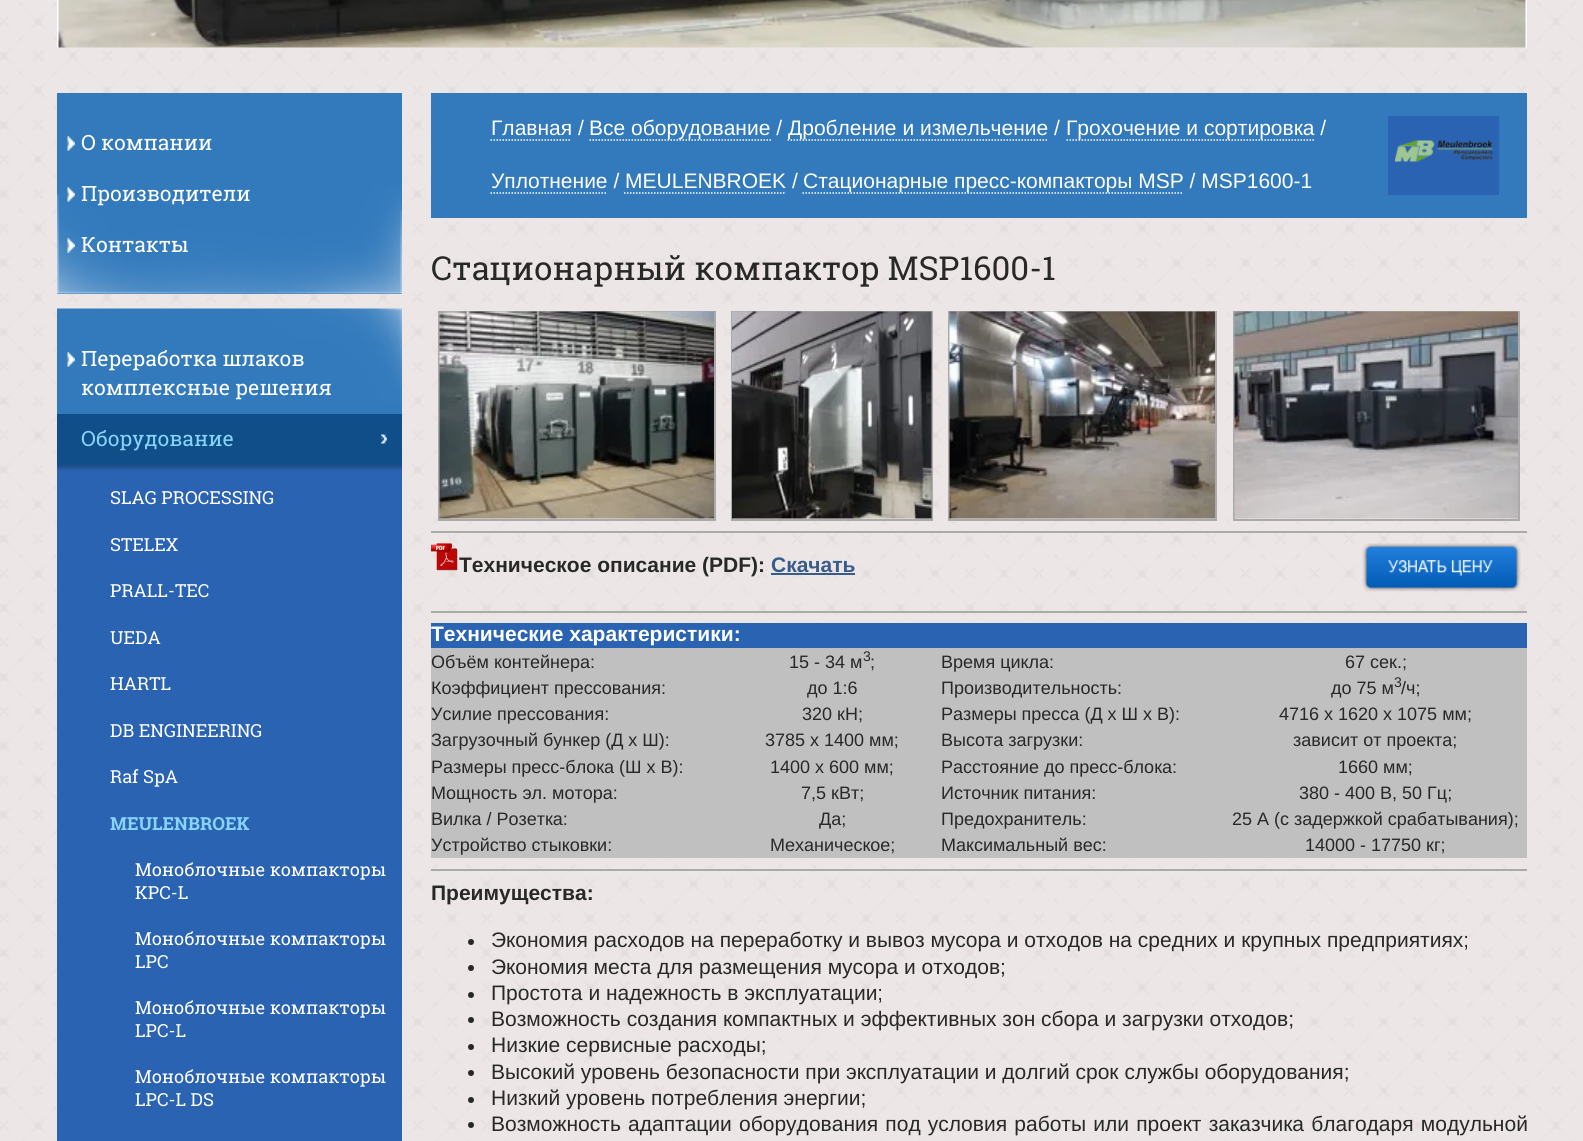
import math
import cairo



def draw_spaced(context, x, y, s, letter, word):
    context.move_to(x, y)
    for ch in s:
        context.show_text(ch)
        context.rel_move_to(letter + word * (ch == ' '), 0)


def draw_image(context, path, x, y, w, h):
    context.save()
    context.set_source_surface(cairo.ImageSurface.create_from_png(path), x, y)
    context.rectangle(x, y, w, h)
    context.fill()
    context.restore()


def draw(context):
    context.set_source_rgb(1, 1, 1)
    context.paint()
    draw_image(context, "images/1.png", 0, 0, 1583, 1141)
    context.save()
    context.rectangle(57, 0, 1470, 48)
    context.clip()
    context.rectangle(58, -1, 1468, 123)
    context.set_source_rgb(1, 1, 1)
    context.stroke()
    context.restore()
    draw_image(context, "images/2.png", 58, 0, 1468, 48)
    context.set_source_rgb(50 / 255, 122 / 255, 188 / 255)
    context.rectangle(57, 93, 345, 201)
    context.fill()
    draw_image(context, "images/3.png", 57, 185, 345, 109)
    draw_image(context, "images/4.png", 67, 136, 8, 15)
    draw_image(context, "images/5.png", 67, 187, 8, 15)
    draw_image(context, "images/6.png", 67, 238, 8, 15)
    context.rectangle(57, 403, 345, 11)
    context.fill()
    draw_image(context, "images/7.png", 57, 308, 345, 95)
    draw_image(context, "images/4.png", 67, 352, 8, 15)
    context.set_source_rgb(15 / 255, 78 / 255, 136 / 255)
    context.rectangle(57, 414, 345, 51)
    context.fill()
    draw_image(context, "images/8.png", 381, 434, 6, 10)
    context.set_source_rgb(43 / 255, 99 / 255, 179 / 255)
    context.rectangle(57, 471, 345, 670)
    context.fill()
    draw_image(context, "images/9.png", 57, 465, 345, 6)
    context.set_source_rgb(50 / 255, 122 / 255, 188 / 255)
    context.rectangle(431, 93, 1096, 125)
    context.fill()
    context.new_path()
    context.move_to(490.5, 140)
    context.line_to(571.5, 140)
    context.set_source_rgb(1, 1, 1)
    context.set_line_width(1.5)
    context.set_dash([1.5, 1.5])
    context.stroke()
    context.new_path()
    context.move_to(589.5, 140)
    context.line_to(771, 140)
    context.stroke()
    context.new_path()
    context.move_to(787.5, 140)
    context.line_to(1048.5, 140)
    context.stroke()
    context.new_path()
    context.move_to(1066.5, 140)
    context.line_to(1314, 140)
    context.stroke()
    context.new_path()
    context.move_to(490.5, 193)
    context.line_to(607.5, 193)
    context.stroke()
    context.new_path()
    context.move_to(802.5, 193)
    context.line_to(1183.5, 193)
    context.stroke()
    context.new_path()
    context.move_to(624, 193)
    context.line_to(786, 193)
    context.stroke()
    context.set_source_rgb(43 / 255, 99 / 255, 179 / 255)
    context.rectangle(1388, 116, 111, 79)
    context.fill()
    draw_image(context, "images/10.png", 1395, 140, 98, 22)
    context.rectangle(439, 312, 276, 208)
    context.set_source_rgb(170 / 255, 170 / 255, 170 / 255)
    context.set_line_width(2)
    context.set_dash([])
    context.stroke()
    draw_image(context, "images/11.png", 439, 311, 275, 208)
    context.rectangle(732, 312, 200, 208)
    context.stroke()
    draw_image(context, "images/12.png", 732, 311, 200, 208)
    context.rectangle(949, 312, 267, 208)
    context.stroke()
    draw_image(context, "images/13.png", 949, 311, 266, 208)
    context.rectangle(1234, 312, 285, 208)
    context.stroke()
    draw_image(context, "images/14.png", 1234, 311, 284, 208)
    context.rectangle(431, 531, 1096, 2)
    context.fill()
    draw_image(context, "images/15.png", 430, 543, 28, 28)
    context.set_source_rgb(56 / 255, 93 / 255, 138 / 255)
    context.rectangle(771, 573, 84, 2)
    context.fill()
    draw_image(context, "images/16.png", 1362, 543, 159, 49)
    context.set_source_rgb(170 / 255, 170 / 255, 170 / 255)
    context.rectangle(431, 611, 1096, 2)
    context.fill()
    context.set_source_rgb(43 / 255, 99 / 255, 179 / 255)
    context.rectangle(431, 623, 1096, 25)
    context.fill()
    context.set_source_rgb(192 / 255, 192 / 255, 192 / 255)
    context.rectangle(431, 648, 1096, 27)
    context.fill()
    context.rectangle(431, 675, 1096, 26)
    context.fill()
    context.rectangle(431, 701, 1096, 27)
    context.fill()
    context.rectangle(431, 728, 1096, 25)
    context.fill()
    context.rectangle(431, 753, 1096, 27)
    context.fill()
    context.rectangle(431, 780, 1096, 26)
    context.fill()
    context.rectangle(431, 806, 1096, 27)
    context.fill()
    context.rectangle(431, 833, 1096, 25)
    context.fill()
    context.set_source_rgb(170 / 255, 170 / 255, 170 / 255)
    context.rectangle(431, 869, 1096, 2)
    context.fill()
    context.set_source_rgb(40 / 255, 40 / 255, 40 / 255)
    context.arc(471, 942, 3, 0, 2 * math.pi)
    context.fill()
    context.arc(471, 968, 3, 0, 2 * math.pi)
    context.fill()
    context.arc(471, 995, 3, 0, 2 * math.pi)
    context.fill()
    context.arc(471, 1020, 3, 0, 2 * math.pi)
    context.fill()
    context.arc(471, 1047, 3, 0, 2 * math.pi)
    context.fill()
    context.arc(471, 1073, 3, 0, 2 * math.pi)
    context.fill()
    context.arc(471, 1100, 3, 0, 2 * math.pi)
    context.fill()
    context.arc(471, 1125, 3, 0, 2 * math.pi)
    context.fill()
    context.select_font_face("Roboto Slab")
    context.set_font_size(21)
    context.set_source_rgb(1, 1, 1)
    context.move_to(81, 150)
    context.show_text("О компании")
    context.move_to(81, 201)
    context.show_text("Производители")
    context.move_to(81, 252)
    context.show_text("Контакты")
    context.move_to(81, 366)
    context.show_text("Переработка шлаков")
    context.move_to(81, 395)
    context.show_text("комплексные решения")
    context.set_source_rgb(136 / 255, 212 / 255, 251 / 255)
    context.move_to(81, 446)
    context.show_text("Оборудование")
    context.set_font_size(18)
    context.set_source_rgb(1, 1, 1)
    context.move_to(110, 504)
    context.show_text("SLAG PROCESSING")
    context.move_to(110, 551)
    context.show_text("STELEX")
    context.move_to(110, 597)
    context.show_text("PRALL-TEC")
    context.move_to(110, 644)
    context.show_text("UEDA")
    context.move_to(110, 690)
    context.show_text("HARTL")
    context.move_to(110, 737)
    context.show_text("DB ENGINEERING")
    context.move_to(110, 783)
    context.show_text("Raf SpA")
    context.select_font_face("Roboto Slab", cairo.FontSlant.NORMAL, cairo.FontWeight.BOLD)
    context.set_source_rgb(136 / 255, 212 / 255, 251 / 255)
    context.move_to(110, 830)
    context.show_text("MEULENBROEK")
    context.select_font_face("Roboto Slab")
    context.set_source_rgb(1, 1, 1)
    context.move_to(135, 876)
    context.show_text("Моноблочные компакторы")
    context.move_to(135, 899)
    context.show_text("KPC-L")
    context.move_to(135, 945)
    context.show_text("Моноблочные компакторы")
    context.move_to(135, 968)
    context.show_text("LPC")
    context.move_to(135, 1014)
    context.show_text("Моноблочные компакторы")
    context.move_to(135, 1037)
    context.show_text("LPC-L")
    context.move_to(135, 1083)
    context.show_text("Моноблочные компакторы")
    context.move_to(135, 1106)
    context.show_text("LPC-L DS")
    context.select_font_face("Liberation Sans")
    context.set_font_size(21)
    context.move_to(491, 135)
    context.show_text("Главная /")
    context.move_to(589, 135)
    context.show_text("Все оборудование /")
    context.move_to(788, 135)
    context.show_text("Дробление и измельчение /")
    context.move_to(1066, 135)
    context.show_text("Грохочение и сортировка /")
    context.move_to(491, 188)
    context.show_text("Уплотнение / MEULENBROEK /")
    context.move_to(803, 188)
    context.show_text("Стационарные пресс-компакторы MSP / MSP1600-1")
    context.select_font_face("Roboto Slab")
    context.set_font_size(33)
    context.set_source_rgb(40 / 255, 40 / 255, 40 / 255)
    context.move_to(431, 280)
    context.show_text("Стационарный компактор MSP1600-1")
    context.select_font_face("Liberation Sans", cairo.FontSlant.NORMAL, cairo.FontWeight.BOLD)
    context.set_font_size(21)
    context.move_to(459, 572)
    context.show_text("Техническое описание (PDF):")
    context.set_source_rgb(56 / 255, 93 / 255, 138 / 255)
    context.move_to(771, 572)
    context.show_text("Скачать")
    context.set_source_rgb(1, 1, 1)
    context.move_to(431, 641)
    context.show_text("Технические характеристики:")
    context.select_font_face("Liberation Sans")
    context.set_font_size(18)
    context.set_source_rgb(40 / 255, 40 / 255, 40 / 255)
    context.move_to(431, 668)
    context.show_text("Объём контейнера:")
    context.move_to(789, 668)
    context.show_text("15 - 34 м")
    context.set_font_size(14)
    context.move_to(863, 661)
    context.show_text("3")
    context.set_font_size(18)
    context.move_to(870, 668)
    context.show_text(";")
    context.move_to(941, 668)
    context.show_text("Время цикла:")
    context.move_to(1345, 668)
    context.show_text("67 сек.;")
    context.move_to(431, 694)
    context.show_text("Коэффициент прессования:")
    context.move_to(807, 694)
    context.show_text("до 1:6")
    context.move_to(941, 694)
    context.show_text("Производительность:")
    context.move_to(1331, 694)
    context.show_text("до 75 м")
    context.set_font_size(14)
    context.move_to(1394, 687)
    context.show_text("3")
    context.set_font_size(18)
    context.move_to(1401, 694)
    context.show_text("/ч;")
    context.move_to(431, 720)
    context.show_text("Усилие прессования:")
    context.move_to(802, 720)
    context.show_text("320 кН;")
    context.move_to(941, 720)
    context.show_text("Размеры пресса (Д х Ш х В):")
    context.move_to(1279, 720)
    context.show_text("4716 х 1620 х 1075 мм;")
    context.move_to(431, 746)
    context.show_text("Загрузочный бункер (Д х Ш):")
    context.move_to(765, 746)
    context.show_text("3785 х 1400 мм;")
    context.move_to(941, 746)
    context.show_text("Высота загрузки:")
    context.move_to(1293, 746)
    context.show_text("зависит от проекта;")
    context.move_to(431, 773)
    context.show_text("Размеры пресс-блока (Ш х В):")
    context.move_to(770, 773)
    context.show_text("1400 х 600 мм;")
    context.move_to(941, 773)
    context.show_text("Расстояние до пресс-блока:")
    context.move_to(1338, 773)
    context.show_text("1660 мм;")
    context.move_to(431, 799)
    context.show_text("Мощность эл. мотора:")
    context.move_to(801, 799)
    context.show_text("7,5 кВт;")
    context.move_to(941, 799)
    context.show_text("Источник питания:")
    context.move_to(1299, 799)
    context.show_text("380 - 400 В, 50 Гц;")
    context.move_to(431, 825)
    context.show_text("Вилка / Розетка:")
    context.move_to(819, 825)
    context.show_text("Да;")
    context.move_to(941, 825)
    context.show_text("Предохранитель:")
    context.move_to(1232, 825)
    context.show_text("25 А (с задержкой срабатывания);")
    context.move_to(431, 851)
    context.show_text("Устройство стыковки:")
    context.move_to(770, 851)
    context.show_text("Механическое;")
    context.move_to(941, 851)
    context.show_text("Максимальный вес:")
    context.move_to(1305, 851)
    context.show_text("14000 - 17750 кг;")
    context.select_font_face("Liberation Sans", cairo.FontSlant.NORMAL, cairo.FontWeight.BOLD)
    context.set_font_size(21)
    context.move_to(431, 900)
    context.show_text("Преимущества:")
    context.select_font_face("Liberation Sans")
    context.move_to(491, 947)
    context.show_text("Экономия расходов на переработку и вывоз мусора и отходов на средних и крупных предприятиях;")
    context.move_to(491, 974)
    context.show_text("Экономия места для размещения мусора и отходов;")
    context.move_to(491, 1000)
    context.show_text("Простота и надежность в эксплуатации;")
    context.move_to(491, 1026)
    context.show_text("Возможность создания компактных и эффективных зон сбора и загрузки отходов;")
    context.move_to(491, 1052)
    context.show_text("Низкие сервисные расходы;")
    context.move_to(491, 1079)
    context.show_text("Высокий уровень безопасности при эксплуатации и долгий срок службы оборудования;")
    context.move_to(491, 1105)
    context.show_text("Низкий уровень потребления энергии;")
    draw_spaced(context, 491, 1131, "Возможность адаптации оборудования под условия работы или проект заказчика благодаря модульной", 0, 1.4)


surface = cairo.ImageSurface(cairo.Format.RGB24, 1583, 1141)
context = cairo.Context(surface)
options = cairo.FontOptions()
options.set_hint_metrics(cairo.HintMetrics.OFF)
options.set_hint_style(cairo.HintStyle.NONE)
context.set_font_options(options)
context.set_miter_limit(4)
draw(context)
surface.write_to_png("out.png")
